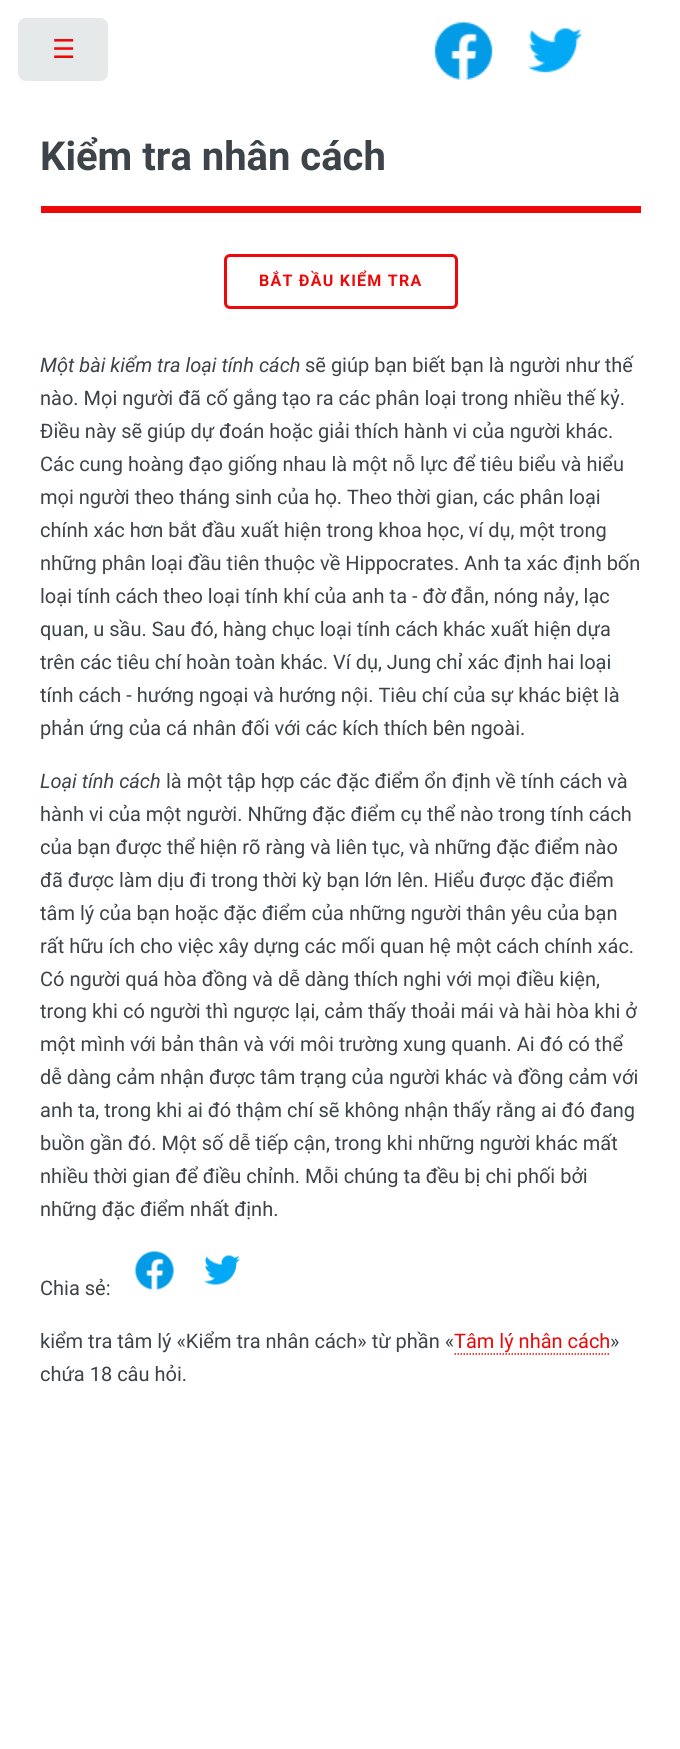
import math
import cairo



def draw_spaced(context, x, y, s, letter, word):
    context.move_to(x, y)
    for ch in s:
        context.show_text(ch)
        context.rel_move_to(letter + word * (ch == ' '), 0)


def rounded_rect(context, x, y, w, h, r):
    context.new_sub_path()
    for i, (u, v) in enumerate([(x + w - r, y + h - r), (x + r, y + h - r), (x + r, y + r), (x + w - r, y + r)]):
        context.arc(u, v, r, i * math.pi / 2, (i + 1) * math.pi / 2)
    context.close_path()


def draw_image(context, path, x, y, w, h):
    context.save()
    context.set_source_surface(cairo.ImageSurface.create_from_png(path), x, y)
    context.rectangle(x, y, w, h)
    context.fill()
    context.restore()


def draw(context):
    context.set_source_rgb(1, 1, 1)
    context.paint()
    context.set_source_rgb(230 / 255, 233 / 255, 233 / 255)
    rounded_rect(context, 18, 18, 90, 63, 8)
    context.fill()
    draw_image(context, "images/1.png", 434, 22, 59, 58)
    draw_image(context, "images/2.png", 528, 28, 55, 45)
    context.set_source_rgb(236 / 255, 9 / 255, 9 / 255)
    context.rectangle(41, 206, 600, 7)
    context.fill()
    rounded_rect(context, 225.5, 255.5, 231, 52, 4.5)
    context.set_line_width(3)
    context.stroke()
    draw_image(context, "images/3.png", 135, 1251, 39, 39)
    draw_image(context, "images/4.png", 204, 1255, 36, 30)
    context.new_path()
    context.move_to(454.5, 1354)
    context.line_to(610.5, 1354)
    context.set_line_width(1.5)
    context.set_dash([1.5, 1.5])
    context.stroke()
    context.select_font_face("DejaVu Sans")
    context.set_font_size(26)
    context.move_to(52, 58)
    context.show_text("☰")
    context.select_font_face("Roboto", cairo.FontSlant.NORMAL, cairo.FontWeight.BOLD)
    context.set_font_size(40)
    context.set_source_rgb(61 / 255, 68 / 255, 73 / 255)
    context.move_to(40, 170)
    context.show_text("Kiểm tra nhân cách")
    context.set_font_size(16)
    context.set_source_rgb(236 / 255, 9 / 255, 9 / 255)
    draw_spaced(context, 259, 286, "BẮT ĐẦU KIỂM TRA", 1.25, 0)
    context.select_font_face("Roboto", cairo.FontSlant.ITALIC)
    context.set_font_size(20)
    context.set_source_rgb(61 / 255, 68 / 255, 73 / 255)
    context.move_to(40, 372)
    context.show_text("Một bài kiểm tra loại tính cách")
    context.select_font_face("Roboto")
    context.move_to(305, 372)
    context.show_text("sẽ giúp bạn biết bạn là người như thế")
    context.move_to(40, 405)
    context.show_text("nào. Mọi người đã cố gắng tạo ra các phân loại trong nhiều thế kỷ.")
    context.move_to(40, 438)
    context.show_text("Điều này sẽ giúp dự đoán hoặc giải thích hành vi của người khác.")
    context.move_to(40, 471)
    context.show_text("Các cung hoàng đạo giống nhau là một nỗ lực để tiêu biểu và hiểu")
    context.move_to(40, 504)
    context.show_text("mọi người theo tháng sinh của họ. Theo thời gian, các phân loại")
    context.move_to(40, 537)
    context.show_text("chính xác hơn bắt đầu xuất hiện trong khoa học, ví dụ, một trong")
    context.move_to(40, 570)
    context.show_text("những phân loại đầu tiên thuộc về Hippocrates. Anh ta xác định bốn")
    context.move_to(40, 603)
    context.show_text("loại tính cách theo loại tính khí của anh ta - đờ đẫn, nóng nảy, lạc")
    context.move_to(40, 636)
    context.show_text("quan, u sầu. Sau đó, hàng chục loại tính cách khác xuất hiện dựa")
    context.move_to(40, 669)
    context.show_text("trên các tiêu chí hoàn toàn khác. Ví dụ, Jung chỉ xác định hai loại")
    context.move_to(40, 702)
    context.show_text("tính cách - hướng ngoại và hướng nội. Tiêu chí của sự khác biệt là")
    context.move_to(40, 735)
    context.show_text("phản ứng của cá nhân đối với các kích thích bên ngoài.")
    context.select_font_face("Roboto", cairo.FontSlant.ITALIC)
    context.move_to(40, 788)
    context.show_text("Loại tính cách")
    context.select_font_face("Roboto")
    context.move_to(166, 788)
    context.show_text("là một tập hợp các đặc điểm ổn định về tính cách và")
    context.move_to(40, 821)
    context.show_text("hành vi của một người. Những đặc điểm cụ thể nào trong tính cách")
    context.move_to(40, 854)
    context.show_text("của bạn được thể hiện rõ ràng và liên tục, và những đặc điểm nào")
    context.move_to(40, 887)
    context.show_text("đã được làm dịu đi trong thời kỳ bạn lớn lên. Hiểu được đặc điểm")
    context.move_to(40, 920)
    context.show_text("tâm lý của bạn hoặc đặc điểm của những người thân yêu của bạn")
    context.move_to(40, 953)
    context.show_text("rất hữu ích cho việc xây dựng các mối quan hệ một cách chính xác.")
    context.move_to(40, 986)
    context.show_text("Có người quá hòa đồng và dễ dàng thích nghi với mọi điều kiện,")
    context.move_to(40, 1018)
    context.show_text("trong khi có người thì ngược lại, cảm thấy thoải mái và hài hòa khi ở")
    context.move_to(40, 1051)
    context.show_text("một mình với bản thân và với môi trường xung quanh. Ai đó có thể")
    context.move_to(40, 1084)
    context.show_text("dễ dàng cảm nhận được tâm trạng của người khác và đồng cảm với")
    context.move_to(40, 1117)
    context.show_text("anh ta, trong khi ai đó thậm chí sẽ không nhận thấy rằng ai đó đang")
    context.move_to(40, 1150)
    context.show_text("buồn gần đó. Một số dễ tiếp cận, trong khi những người khác mất")
    context.move_to(40, 1183)
    context.show_text("nhiều thời gian để điều chỉnh. Mỗi chúng ta đều bị chi phối bởi")
    context.move_to(40, 1216)
    context.show_text("những đặc điểm nhất định.")
    context.move_to(40, 1295)
    context.show_text("Chia sẻ:")
    context.move_to(40, 1348)
    context.show_text("kiểm tra tâm lý «Kiểm tra nhân cách» từ phần «")
    context.set_source_rgb(236 / 255, 9 / 255, 9 / 255)
    context.move_to(454, 1348)
    context.show_text("Tâm lý nhân cách")
    context.set_source_rgb(61 / 255, 68 / 255, 73 / 255)
    context.move_to(610, 1348)
    context.show_text("»")
    context.move_to(40, 1381)
    context.show_text("chứa 18 câu hỏi.")


surface = cairo.ImageSurface(cairo.Format.RGB24, 680, 1749)
context = cairo.Context(surface)
options = cairo.FontOptions()
options.set_hint_metrics(cairo.HintMetrics.OFF)
options.set_hint_style(cairo.HintStyle.NONE)
context.set_font_options(options)
context.set_miter_limit(4)
draw(context)
surface.write_to_png("out.png")
